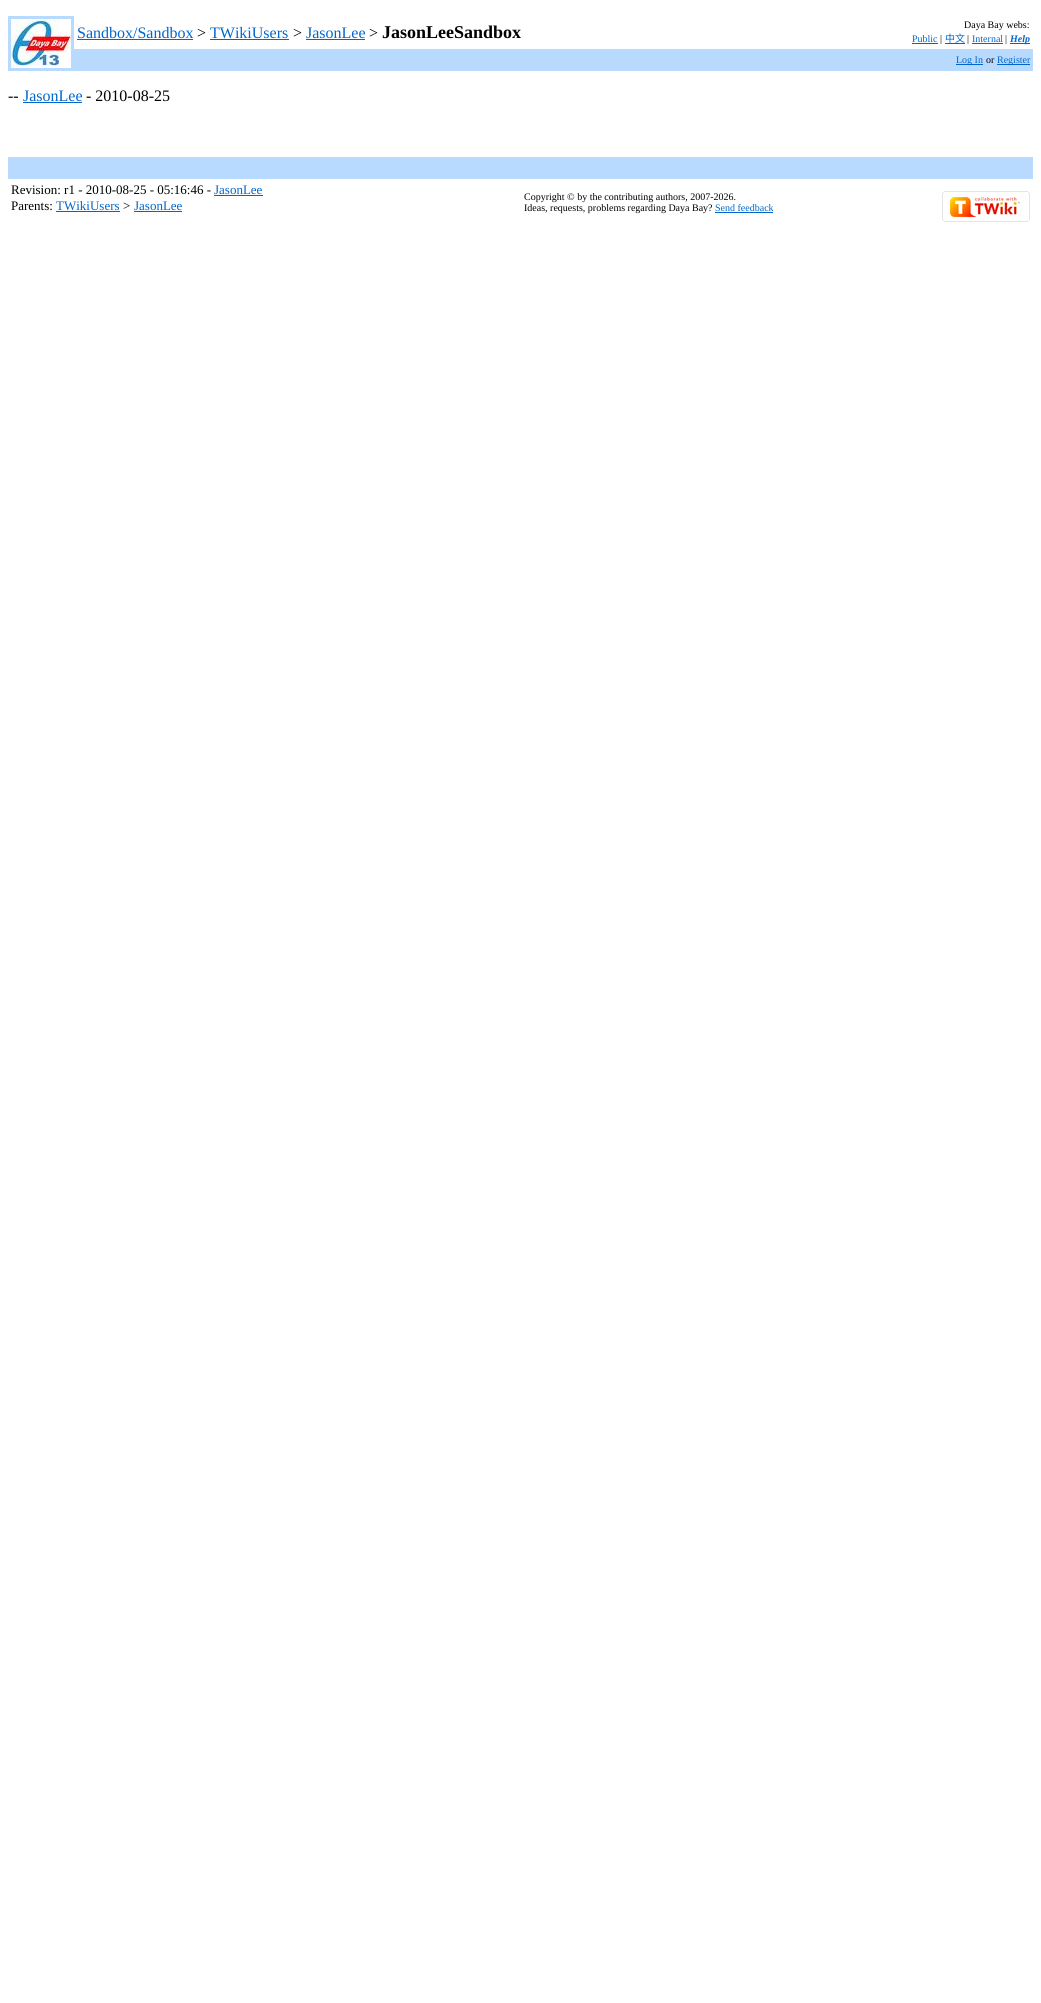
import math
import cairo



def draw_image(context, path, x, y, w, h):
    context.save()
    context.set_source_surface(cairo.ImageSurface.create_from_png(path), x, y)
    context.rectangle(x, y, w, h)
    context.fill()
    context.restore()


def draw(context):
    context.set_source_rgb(1, 1, 1)
    context.paint()
    context.set_source_rgb(185 / 255, 218 / 255, 1)
    context.rectangle(8, 16, 66, 33)
    context.fill()
    context.rectangle(8, 49, 1025, 22)
    context.fill()
    draw_image(context, "images/1.png", 11, 19, 60, 49)
    context.set_source_rgb(0, 102 / 255, 204 / 255)
    context.rectangle(77, 39, 116, 1)
    context.fill()
    context.rectangle(210, 39, 79, 1)
    context.fill()
    context.rectangle(306, 39, 59, 1)
    context.fill()
    context.rectangle(912, 43, 26, 1)
    context.fill()
    context.rectangle(945, 43, 20, 1)
    context.fill()
    context.rectangle(972, 43, 31, 1)
    context.fill()
    context.rectangle(1010, 43, 20, 1)
    context.fill()
    context.rectangle(956, 64, 27, 1)
    context.fill()
    context.rectangle(997, 64, 33, 1)
    context.fill()
    context.rectangle(23, 102, 59, 1)
    context.fill()
    context.set_source_rgb(185 / 255, 218 / 255, 1)
    context.rectangle(8, 157, 1025, 22)
    context.fill()
    context.set_source_rgb(0, 102 / 255, 204 / 255)
    context.rectangle(214, 195, 49, 1)
    context.fill()
    context.rectangle(56, 211, 64, 1)
    context.fill()
    context.rectangle(134, 211, 48, 1)
    context.fill()
    draw_image(context, "images/2.png", 942, 191, 88, 31)
    context.rectangle(715, 212, 58, 1)
    context.fill()
    context.select_font_face("Liberation Serif")
    context.set_font_size(16)
    context.move_to(77, 38)
    context.show_text("Sandbox/Sandbox")
    context.set_source_rgb(0, 0, 0)
    context.move_to(197, 38)
    context.show_text(">")
    context.set_source_rgb(0, 102 / 255, 204 / 255)
    context.move_to(210, 38)
    context.show_text("TWikiUsers")
    context.set_source_rgb(0, 0, 0)
    context.move_to(293, 38)
    context.show_text(">")
    context.set_source_rgb(0, 102 / 255, 204 / 255)
    context.move_to(306, 38)
    context.show_text("JasonLee")
    context.set_source_rgb(0, 0, 0)
    context.move_to(369, 38)
    context.show_text(">")
    context.select_font_face("Liberation Serif", cairo.FontSlant.NORMAL, cairo.FontWeight.BOLD)
    context.set_font_size(18)
    context.move_to(382, 38)
    context.show_text("JasonLeeSandbox")
    context.select_font_face("Liberation Serif")
    context.set_font_size(10)
    context.move_to(964, 28)
    context.show_text("Daya Bay webs:")
    context.set_source_rgb(0, 102 / 255, 204 / 255)
    context.move_to(912, 42)
    context.show_text("Public")
    context.set_source_rgb(0, 0, 0)
    context.move_to(940, 42)
    context.show_text("|")
    context.select_font_face("Noto Sans CJK SC")
    context.set_source_rgb(0, 102 / 255, 204 / 255)
    context.move_to(945, 42)
    context.show_text("中文")
    context.select_font_face("Liberation Serif")
    context.set_source_rgb(0, 0, 0)
    context.move_to(967, 42)
    context.show_text("|")
    context.set_source_rgb(0, 102 / 255, 204 / 255)
    context.move_to(972, 42)
    context.show_text("Internal")
    context.set_source_rgb(0, 0, 0)
    context.move_to(1005, 42)
    context.show_text("|")
    context.select_font_face("Liberation Serif", cairo.FontSlant.ITALIC, cairo.FontWeight.BOLD)
    context.set_source_rgb(0, 102 / 255, 204 / 255)
    context.move_to(1010, 42)
    context.show_text("Help")
    context.select_font_face("Liberation Serif")
    context.move_to(956, 63)
    context.show_text("Log In")
    context.set_source_rgb(0, 0, 0)
    context.move_to(986, 63)
    context.show_text("or")
    context.set_source_rgb(0, 102 / 255, 204 / 255)
    context.move_to(997, 63)
    context.show_text("Register")
    context.set_font_size(16)
    context.set_source_rgb(0, 0, 0)
    context.move_to(8, 101)
    context.show_text("--")
    context.set_source_rgb(0, 102 / 255, 204 / 255)
    context.move_to(23, 101)
    context.show_text("JasonLee")
    context.set_source_rgb(0, 0, 0)
    context.move_to(86, 101)
    context.show_text("- 2010-08-25")
    context.set_font_size(13)
    context.move_to(11, 194)
    context.show_text("Revision: r1 - 2010-08-25 - 05:16:46 -")
    context.set_source_rgb(0, 102 / 255, 204 / 255)
    context.move_to(214, 194)
    context.show_text("JasonLee")
    context.set_source_rgb(0, 0, 0)
    context.move_to(11, 210)
    context.show_text("Parents:")
    context.set_source_rgb(0, 102 / 255, 204 / 255)
    context.move_to(56, 210)
    context.show_text("TWikiUsers")
    context.set_source_rgb(0, 0, 0)
    context.move_to(123, 210)
    context.show_text(">")
    context.set_source_rgb(0, 102 / 255, 204 / 255)
    context.move_to(134, 210)
    context.show_text("JasonLee")
    context.set_font_size(10)
    context.set_source_rgb(0, 0, 0)
    context.move_to(524, 200)
    context.show_text("Copyright © by the contributing authors, 2007-2026.")
    context.move_to(524, 211)
    context.show_text("Ideas, requests, problems regarding Daya Bay?")
    context.set_source_rgb(0, 102 / 255, 204 / 255)
    context.move_to(715, 211)
    context.show_text("Send feedback")


surface = cairo.ImageSurface(cairo.Format.RGB24, 1041, 2003)
context = cairo.Context(surface)
options = cairo.FontOptions()
options.set_hint_metrics(cairo.HintMetrics.OFF)
options.set_hint_style(cairo.HintStyle.NONE)
context.set_font_options(options)
context.set_miter_limit(4)
draw(context)
surface.write_to_png("out.png")
